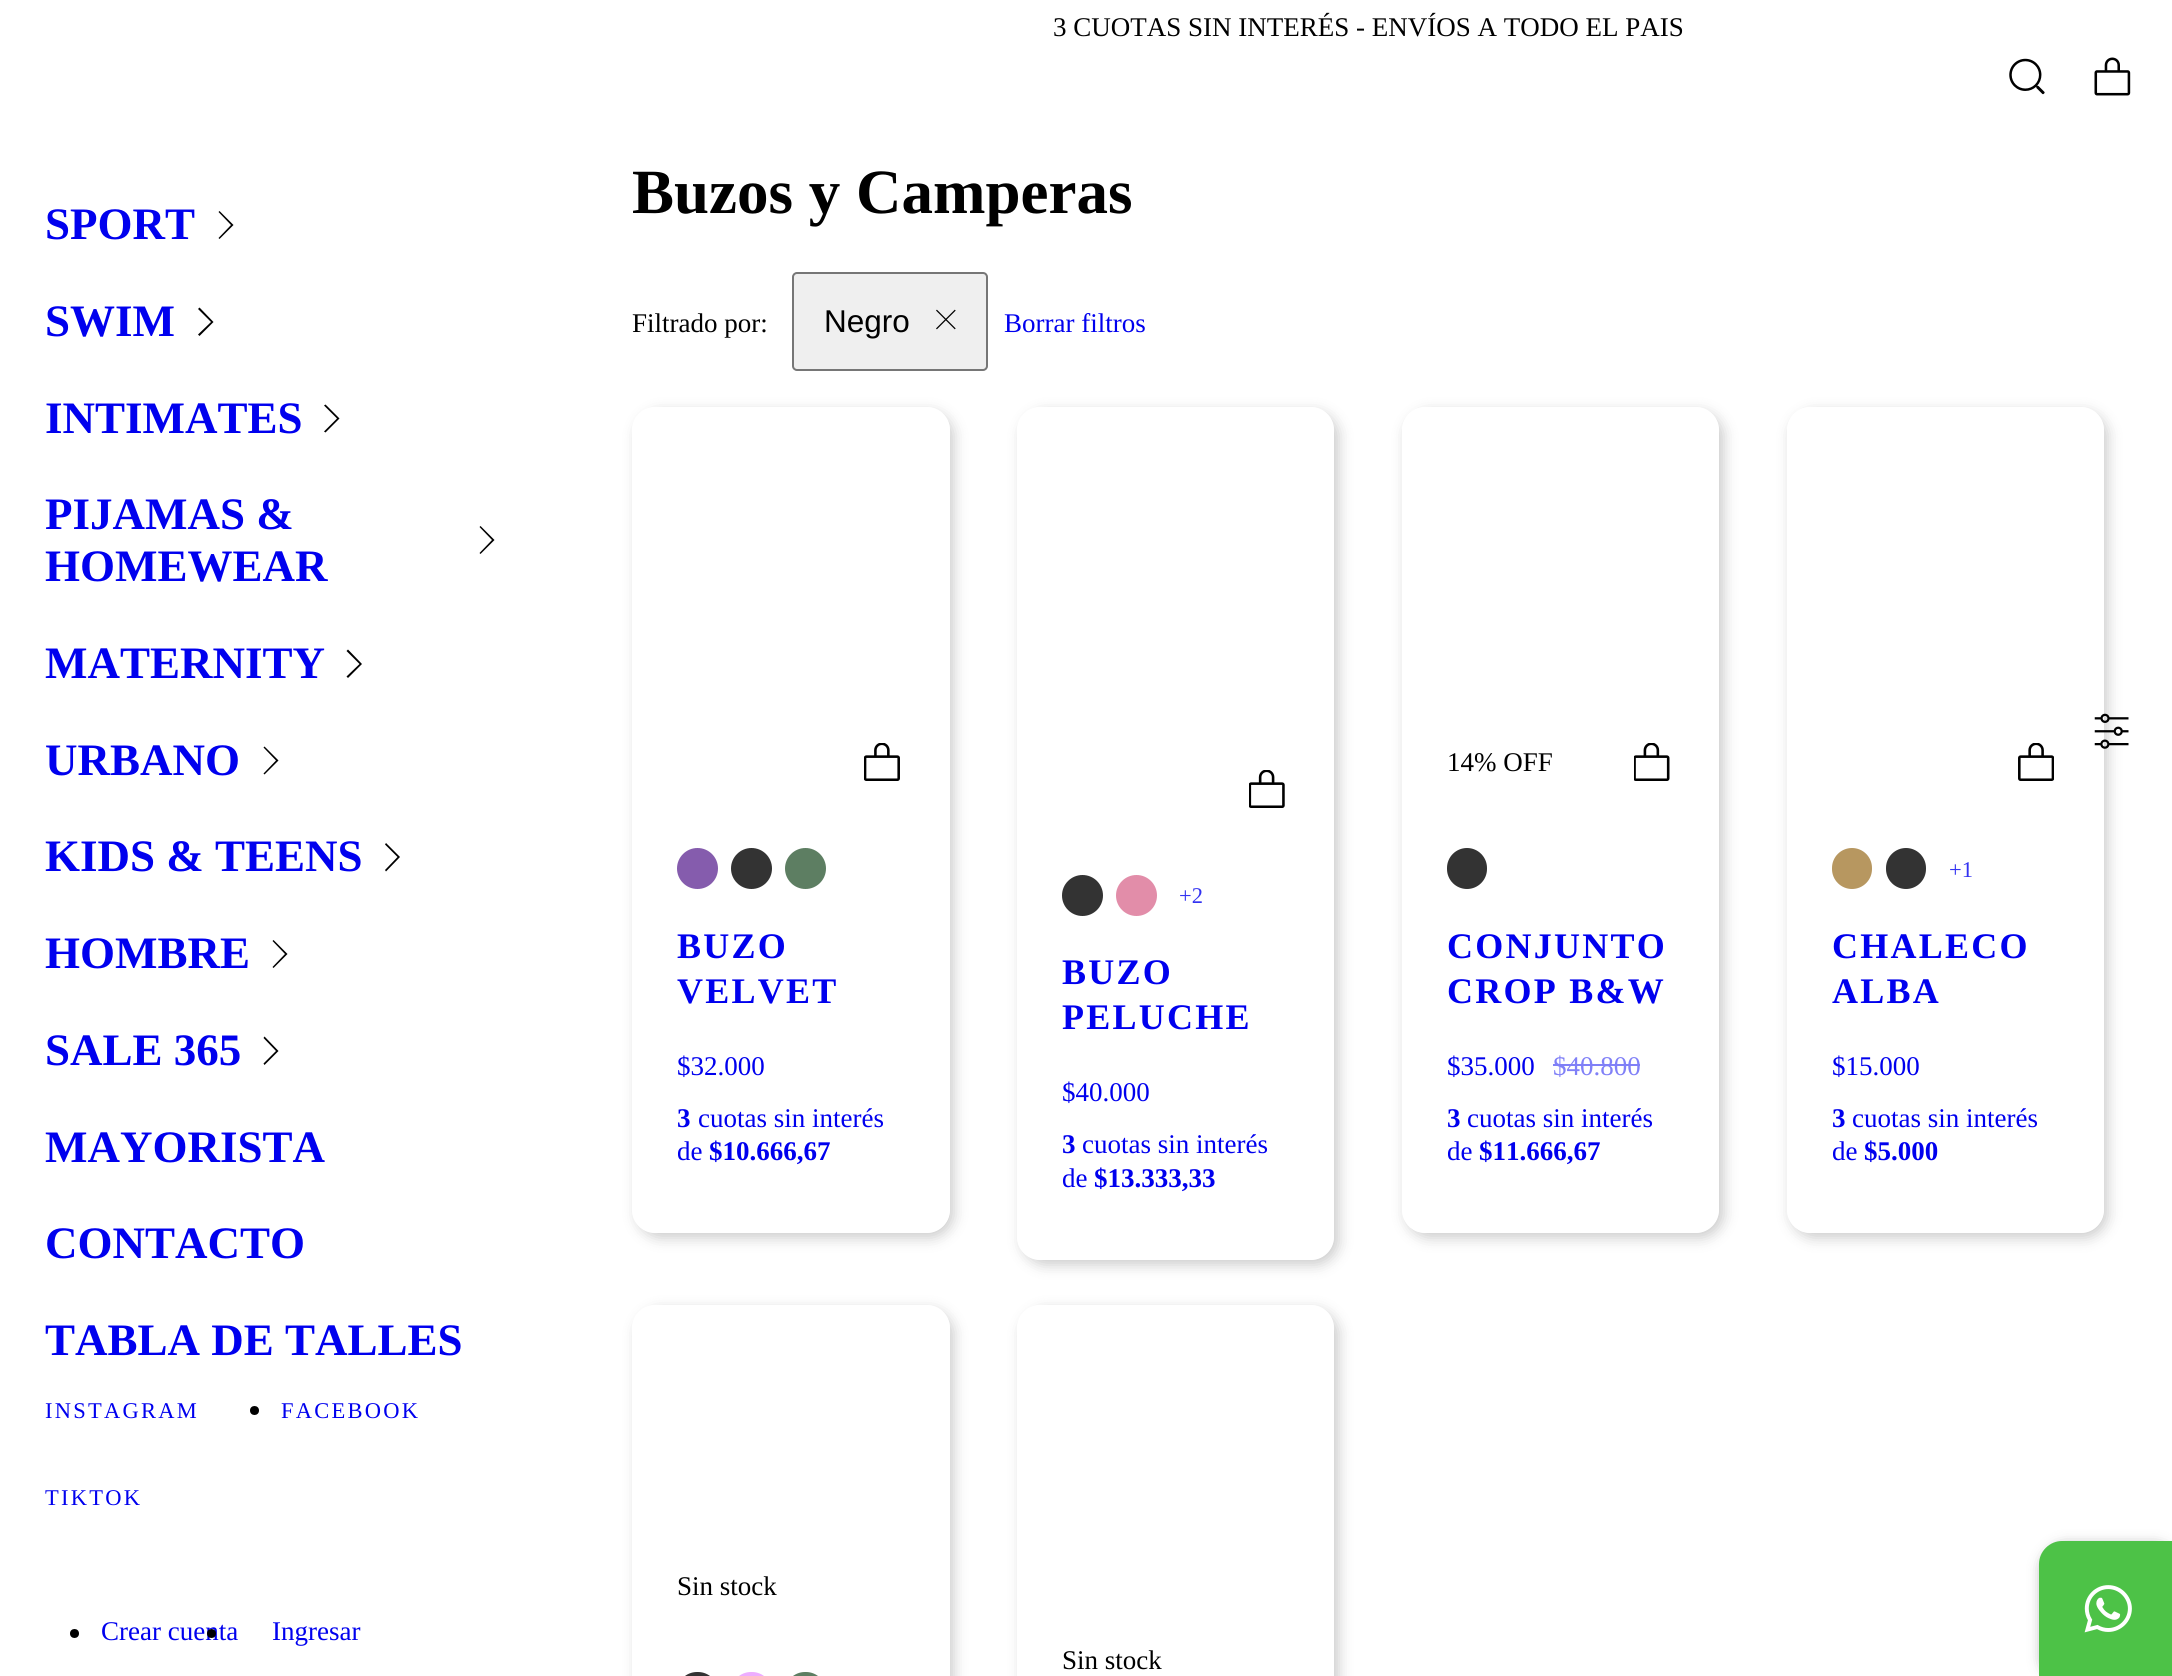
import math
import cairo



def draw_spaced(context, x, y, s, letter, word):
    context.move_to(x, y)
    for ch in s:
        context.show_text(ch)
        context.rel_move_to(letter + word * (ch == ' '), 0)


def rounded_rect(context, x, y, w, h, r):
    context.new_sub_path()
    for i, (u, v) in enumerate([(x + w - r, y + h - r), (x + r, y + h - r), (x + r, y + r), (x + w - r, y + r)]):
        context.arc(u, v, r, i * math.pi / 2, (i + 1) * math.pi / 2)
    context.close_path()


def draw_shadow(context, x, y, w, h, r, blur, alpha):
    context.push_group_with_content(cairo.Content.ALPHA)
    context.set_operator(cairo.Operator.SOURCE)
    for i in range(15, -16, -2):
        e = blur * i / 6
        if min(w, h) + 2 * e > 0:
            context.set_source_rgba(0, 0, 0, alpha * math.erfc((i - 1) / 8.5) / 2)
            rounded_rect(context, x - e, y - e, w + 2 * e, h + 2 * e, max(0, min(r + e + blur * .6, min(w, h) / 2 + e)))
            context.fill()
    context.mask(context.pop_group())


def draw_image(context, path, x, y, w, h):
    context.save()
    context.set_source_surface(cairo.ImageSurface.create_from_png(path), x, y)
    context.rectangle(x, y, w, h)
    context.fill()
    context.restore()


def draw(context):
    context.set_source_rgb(1, 1, 1)
    context.paint()
    context.set_source_rgb(239 / 255, 239 / 255, 239 / 255)
    rounded_rect(context, 793, 273, 194, 97, 4)
    context.fill_preserve()
    context.set_source_rgb(118 / 255, 118 / 255, 118 / 255)
    context.stroke()
    draw_image(context, "images/1.png", 936, 309, 20, 21)
    context.save()
    context.set_fill_rule(cairo.FillRule.EVEN_ODD)
    context.new_path()
    context.move_to(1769, 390)
    context.line_to(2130, 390)
    context.line_to(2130, 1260)
    context.line_to(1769, 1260)
    context.close_path()
    context.move_to(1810, 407)
    context.line_to(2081, 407)
    context.curve_to(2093.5, 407, 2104, 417.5, 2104, 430)
    context.line_to(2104, 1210)
    context.curve_to(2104, 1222.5, 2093.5, 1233, 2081, 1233)
    context.line_to(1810, 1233)
    context.curve_to(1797.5, 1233, 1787, 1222.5, 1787, 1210)
    context.line_to(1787, 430)
    context.curve_to(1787, 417.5, 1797.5, 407, 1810, 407)
    context.close_path()
    context.clip()
    context.set_source_rgb(0, 0, 0)
    draw_shadow(context, 1791, 412, 317, 826, 23, 7, 0.2)
    context.restore()
    draw_image(context, "images/2.png", 2094, 713, 35, 36)
    context.save()
    context.set_fill_rule(cairo.FillRule.EVEN_ODD)
    context.new_path()
    context.move_to(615, 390)
    context.line_to(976, 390)
    context.line_to(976, 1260)
    context.line_to(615, 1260)
    context.close_path()
    context.move_to(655, 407)
    context.line_to(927, 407)
    context.curve_to(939.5, 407, 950, 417.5, 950, 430)
    context.line_to(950, 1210)
    context.curve_to(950, 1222.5, 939.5, 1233, 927, 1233)
    context.line_to(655, 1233)
    context.curve_to(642.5, 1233, 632, 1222.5, 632, 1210)
    context.line_to(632, 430)
    context.curve_to(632, 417.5, 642.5, 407, 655, 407)
    context.close_path()
    context.clip()
    context.set_source_rgb(0, 0, 0)
    draw_shadow(context, 637, 412, 317, 826, 23, 7, 0.2)
    context.restore()
    draw_image(context, "images/3.png", 864, 743, 36, 38)
    context.set_source_rgb(133 / 255, 92 / 255, 173 / 255)
    context.arc(697.5, 868.5, 20.5, 0, 2 * math.pi)
    context.fill()
    context.set_source_rgb(51 / 255, 51 / 255, 51 / 255)
    context.arc(751.5, 868.5, 20.5, 0, 2 * math.pi)
    context.fill()
    context.set_source_rgb(93 / 255, 126 / 255, 98 / 255)
    context.arc(805.5, 868.5, 20.5, 0, 2 * math.pi)
    context.fill()
    context.save()
    context.set_fill_rule(cairo.FillRule.EVEN_ODD)
    context.new_path()
    context.move_to(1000, 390)
    context.line_to(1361, 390)
    context.line_to(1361, 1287)
    context.line_to(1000, 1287)
    context.close_path()
    context.move_to(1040, 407)
    context.line_to(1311, 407)
    context.curve_to(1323.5, 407, 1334, 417.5, 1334, 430)
    context.line_to(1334, 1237)
    context.curve_to(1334, 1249.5, 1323.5, 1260, 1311, 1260)
    context.line_to(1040, 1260)
    context.curve_to(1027.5, 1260, 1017, 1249.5, 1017, 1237)
    context.line_to(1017, 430)
    context.curve_to(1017, 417.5, 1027.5, 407, 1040, 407)
    context.close_path()
    context.clip()
    context.set_source_rgb(0, 0, 0)
    draw_shadow(context, 1022, 412, 317, 853, 23, 7, 0.2)
    context.restore()
    draw_image(context, "images/4.png", 1249, 770, 36, 38)
    context.set_source_rgb(51 / 255, 51 / 255, 51 / 255)
    context.arc(1082.5, 895.5, 20.5, 0, 2 * math.pi)
    context.fill()
    context.set_source_rgb(226 / 255, 141 / 255, 169 / 255)
    context.arc(1136.5, 895.5, 20.5, 0, 2 * math.pi)
    context.fill()
    context.save()
    context.set_fill_rule(cairo.FillRule.EVEN_ODD)
    context.new_path()
    context.move_to(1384, 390)
    context.line_to(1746, 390)
    context.line_to(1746, 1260)
    context.line_to(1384, 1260)
    context.close_path()
    context.move_to(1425, 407)
    context.line_to(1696, 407)
    context.curve_to(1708.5, 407, 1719, 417.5, 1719, 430)
    context.line_to(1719, 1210)
    context.curve_to(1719, 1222.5, 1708.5, 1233, 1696, 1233)
    context.line_to(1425, 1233)
    context.curve_to(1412.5, 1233, 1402, 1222.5, 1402, 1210)
    context.line_to(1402, 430)
    context.curve_to(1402, 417.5, 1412.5, 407, 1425, 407)
    context.close_path()
    context.clip()
    context.set_source_rgb(0, 0, 0)
    draw_shadow(context, 1406, 412, 318, 826, 23, 7, 0.2)
    context.restore()
    draw_image(context, "images/5.png", 1634, 743, 36, 38)
    context.set_source_rgb(51 / 255, 51 / 255, 51 / 255)
    rounded_rect(context, 1447, 848, 40, 41, 20)
    context.fill()
    context.set_source_rgb(128 / 255, 128 / 255, 247 / 255)
    context.rectangle(1553, 1064, 87, 2)
    context.fill()
    draw_image(context, "images/6.png", 2018, 743, 36, 38)
    context.set_source_rgb(183 / 255, 151 / 255, 96 / 255)
    rounded_rect(context, 1832, 848, 40, 41, 20)
    context.fill()
    context.set_source_rgb(51 / 255, 51 / 255, 51 / 255)
    rounded_rect(context, 1886, 848, 40, 41, 20)
    context.fill()
    context.save()
    context.set_fill_rule(cairo.FillRule.EVEN_ODD)
    context.new_path()
    context.move_to(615, 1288)
    context.line_to(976, 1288)
    context.line_to(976, 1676)
    context.line_to(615, 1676)
    context.close_path()
    context.move_to(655, 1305)
    context.line_to(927, 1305)
    context.curve_to(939.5, 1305, 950, 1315.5, 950, 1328)
    context.line_to(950, 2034)
    context.curve_to(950, 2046.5, 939.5, 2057, 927, 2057)
    context.line_to(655, 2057)
    context.curve_to(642.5, 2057, 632, 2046.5, 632, 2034)
    context.line_to(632, 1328)
    context.curve_to(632, 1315.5, 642.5, 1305, 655, 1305)
    context.close_path()
    context.clip()
    context.set_source_rgb(0, 0, 0)
    draw_shadow(context, 637, 1310, 317, 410, 23, 7, 0.2)
    context.restore()
    rounded_rect(context, 677, 1672, 41, 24, 20)
    context.fill()
    context.set_source_rgb(237 / 255, 173 / 255, 1)
    rounded_rect(context, 731, 1672, 41, 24, 20)
    context.fill()
    context.set_source_rgb(93 / 255, 126 / 255, 98 / 255)
    rounded_rect(context, 785, 1672, 41, 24, 20)
    context.fill()
    context.save()
    context.set_fill_rule(cairo.FillRule.EVEN_ODD)
    context.new_path()
    context.move_to(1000, 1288)
    context.line_to(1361, 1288)
    context.line_to(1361, 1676)
    context.line_to(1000, 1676)
    context.close_path()
    context.move_to(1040, 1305)
    context.line_to(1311, 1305)
    context.curve_to(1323.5, 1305, 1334, 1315.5, 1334, 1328)
    context.line_to(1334, 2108)
    context.curve_to(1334, 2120.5, 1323.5, 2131, 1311, 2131)
    context.line_to(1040, 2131)
    context.curve_to(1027.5, 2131, 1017, 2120.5, 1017, 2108)
    context.line_to(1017, 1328)
    context.curve_to(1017, 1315.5, 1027.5, 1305, 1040, 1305)
    context.close_path()
    context.clip()
    context.set_source_rgb(0, 0, 0)
    draw_shadow(context, 1022, 1310, 317, 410, 23, 7, 0.2)
    context.restore()
    draw_image(context, "images/7.png", 2009, 58, 36, 37)
    draw_image(context, "images/8.png", 2094, 57, 37, 39)
    context.set_source_rgb(0, 0, 0)
    context.new_path()
    context.move_to(219.5, 239)
    context.line_to(218.5, 238)
    context.line_to(231, 225)
    context.line_to(218.5, 212)
    context.line_to(219.5, 211)
    context.line_to(233.5, 225)
    context.close_path()
    context.fill()
    context.new_path()
    context.move_to(199.5, 336)
    context.line_to(198, 334.5)
    context.line_to(211, 322)
    context.line_to(198, 309)
    context.line_to(199.5, 307.5)
    context.line_to(213.5, 322)
    context.close_path()
    context.fill()
    context.new_path()
    context.move_to(325.5, 432.5)
    context.line_to(324, 431.5)
    context.line_to(337, 418.5)
    context.line_to(324, 405.5)
    context.line_to(325.5, 404.5)
    context.line_to(339.5, 418.5)
    context.close_path()
    context.fill()
    context.new_path()
    context.move_to(480.5, 554)
    context.line_to(479.5, 553)
    context.line_to(492, 540)
    context.line_to(479.5, 527)
    context.line_to(480.5, 526)
    context.line_to(494.5, 540)
    context.close_path()
    context.fill()
    context.new_path()
    context.move_to(348, 678)
    context.line_to(346.5, 676.5)
    context.line_to(359.5, 664)
    context.line_to(346.5, 651)
    context.line_to(348, 649.5)
    context.line_to(362, 664)
    context.close_path()
    context.fill()
    context.new_path()
    context.move_to(264.5, 774.5)
    context.line_to(263.5, 773.5)
    context.line_to(276, 760.5)
    context.line_to(263.5, 747.5)
    context.line_to(264.5, 746.5)
    context.line_to(278.5, 760.5)
    context.close_path()
    context.fill()
    context.new_path()
    context.move_to(386, 871.5)
    context.line_to(385, 870)
    context.line_to(397.5, 857)
    context.line_to(385, 844.5)
    context.line_to(386, 843)
    context.line_to(400, 857)
    context.close_path()
    context.fill()
    context.new_path()
    context.move_to(273.5, 968)
    context.line_to(272.5, 967)
    context.line_to(285, 954)
    context.line_to(272.5, 941)
    context.line_to(273.5, 940)
    context.line_to(287.5, 954)
    context.close_path()
    context.fill()
    context.new_path()
    context.move_to(264.5, 1065)
    context.line_to(263.5, 1063.5)
    context.line_to(276, 1051)
    context.line_to(263.5, 1038)
    context.line_to(264.5, 1036.5)
    context.line_to(278.5, 1051)
    context.close_path()
    context.fill()
    context.arc(254.5, 1410.5, 4.5, 0, 2 * math.pi)
    context.fill()
    context.arc(74.5, 1633.5, 4.5, 0, 2 * math.pi)
    context.fill()
    context.set_source_rgb(0, 0, 0)
    draw_shadow(context, 2043, 1546, 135, 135, 23, 7, 0.4)
    context.set_source_rgb(77 / 255, 194 / 255, 71 / 255)
    context.new_path()
    context.move_to(2062, 1541)
    context.line_to(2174, 1541)
    context.line_to(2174, 1676)
    context.line_to(2039, 1676)
    context.line_to(2039, 1564)
    context.curve_to(2039, 1551.5, 2049.5, 1541, 2062, 1541)
    context.close_path()
    context.fill()
    draw_image(context, "images/9.png", 2084, 1585, 48, 48)
    context.select_font_face("Liberation Serif")
    context.set_font_size(27)
    context.set_source_rgb(0, 0, 0)
    context.move_to(1053, 36)
    context.show_text("3 CUOTAS SIN INTERÉS - ENVÍOS A TODO EL PAIS")
    context.select_font_face("Liberation Serif", cairo.FontSlant.NORMAL, cairo.FontWeight.BOLD)
    context.set_font_size(63)
    context.move_to(632, 213)
    context.show_text("Buzos y Camperas")
    context.select_font_face("Liberation Serif")
    context.set_font_size(27)
    context.move_to(632, 332)
    context.show_text("Filtrado por:")
    context.select_font_face("Liberation Sans")
    context.set_font_size(31.5)
    context.move_to(824, 332)
    context.show_text("Negro")
    context.select_font_face("Liberation Serif")
    context.set_font_size(27)
    context.set_source_rgb(0, 0, 238 / 255)
    context.move_to(1004, 332)
    context.show_text("Borrar filtros")
    context.select_font_face("Liberation Serif", cairo.FontSlant.NORMAL, cairo.FontWeight.BOLD)
    context.set_font_size(36)
    draw_spaced(context, 677, 958, "BUZO", 2.25, 0)
    draw_spaced(context, 677, 1003, "VELVET", 2.25, 0)
    context.select_font_face("Liberation Serif")
    context.set_font_size(27)
    context.move_to(677, 1075)
    context.show_text("$32.000")
    context.select_font_face("Liberation Serif", cairo.FontSlant.NORMAL, cairo.FontWeight.BOLD)
    context.move_to(677, 1127)
    context.show_text("3")
    context.select_font_face("Liberation Serif")
    context.move_to(698, 1127)
    context.show_text("cuotas sin interés")
    context.move_to(677, 1160)
    context.show_text("de")
    context.select_font_face("Liberation Serif", cairo.FontSlant.NORMAL, cairo.FontWeight.BOLD)
    context.move_to(709, 1160)
    context.show_text("$10.666,67")
    context.select_font_face("Liberation Serif")
    context.set_font_size(22.5)
    context.set_source_rgb(51 / 255, 51 / 255, 241 / 255)
    context.move_to(1179, 903)
    context.show_text("+2")
    context.select_font_face("Liberation Serif", cairo.FontSlant.NORMAL, cairo.FontWeight.BOLD)
    context.set_font_size(36)
    context.set_source_rgb(0, 0, 238 / 255)
    draw_spaced(context, 1062, 984, "BUZO", 2.25, 0)
    draw_spaced(context, 1062, 1029, "PELUCHE", 2.25, 0)
    context.select_font_face("Liberation Serif")
    context.set_font_size(27)
    context.move_to(1062, 1101)
    context.show_text("$40.000")
    context.select_font_face("Liberation Serif", cairo.FontSlant.NORMAL, cairo.FontWeight.BOLD)
    context.move_to(1062, 1153)
    context.show_text("3")
    context.select_font_face("Liberation Serif")
    context.move_to(1082, 1153)
    context.show_text("cuotas sin interés")
    context.move_to(1062, 1187)
    context.show_text("de")
    context.select_font_face("Liberation Serif", cairo.FontSlant.NORMAL, cairo.FontWeight.BOLD)
    context.move_to(1094, 1187)
    context.show_text("$13.333,33")
    context.select_font_face("Liberation Serif")
    context.set_source_rgb(0, 0, 0)
    context.move_to(1447, 771)
    context.show_text("14% OFF")
    context.select_font_face("Liberation Serif", cairo.FontSlant.NORMAL, cairo.FontWeight.BOLD)
    context.set_font_size(36)
    context.set_source_rgb(0, 0, 238 / 255)
    draw_spaced(context, 1447, 958, "CONJUNTO", 2.25, 0)
    draw_spaced(context, 1447, 1003, "CROP B&W", 2.25, 0)
    context.select_font_face("Liberation Serif")
    context.set_font_size(27)
    context.move_to(1447, 1075)
    context.show_text("$35.000")
    context.set_source_rgb(128 / 255, 128 / 255, 247 / 255)
    context.move_to(1553, 1075)
    context.show_text("$40.800")
    context.select_font_face("Liberation Serif", cairo.FontSlant.NORMAL, cairo.FontWeight.BOLD)
    context.set_source_rgb(0, 0, 238 / 255)
    context.move_to(1447, 1127)
    context.show_text("3")
    context.select_font_face("Liberation Serif")
    context.move_to(1467, 1127)
    context.show_text("cuotas sin interés")
    context.move_to(1447, 1160)
    context.show_text("de")
    context.select_font_face("Liberation Serif", cairo.FontSlant.NORMAL, cairo.FontWeight.BOLD)
    context.move_to(1479, 1160)
    context.show_text("$11.666,67")
    context.select_font_face("Liberation Serif")
    context.set_font_size(22.5)
    context.set_source_rgb(51 / 255, 51 / 255, 241 / 255)
    context.move_to(1949, 877)
    context.show_text("+1")
    context.select_font_face("Liberation Serif", cairo.FontSlant.NORMAL, cairo.FontWeight.BOLD)
    context.set_font_size(36)
    context.set_source_rgb(0, 0, 238 / 255)
    draw_spaced(context, 1832, 958, "CHALECO", 2.25, 0)
    draw_spaced(context, 1832, 1003, "ALBA", 2.25, 0)
    context.select_font_face("Liberation Serif")
    context.set_font_size(27)
    context.move_to(1832, 1075)
    context.show_text("$15.000")
    context.select_font_face("Liberation Serif", cairo.FontSlant.NORMAL, cairo.FontWeight.BOLD)
    context.move_to(1832, 1127)
    context.show_text("3")
    context.select_font_face("Liberation Serif")
    context.move_to(1852, 1127)
    context.show_text("cuotas sin interés")
    context.move_to(1832, 1160)
    context.show_text("de")
    context.select_font_face("Liberation Serif", cairo.FontSlant.NORMAL, cairo.FontWeight.BOLD)
    context.move_to(1864, 1160)
    context.show_text("$5.000")
    context.select_font_face("Liberation Serif")
    context.set_source_rgb(0, 0, 0)
    context.move_to(677, 1595)
    context.show_text("Sin stock")
    context.move_to(1062, 1669)
    context.show_text("Sin stock")
    context.select_font_face("Liberation Serif", cairo.FontSlant.NORMAL, cairo.FontWeight.BOLD)
    context.set_font_size(45)
    context.set_source_rgb(0, 0, 238 / 255)
    context.move_to(45, 239)
    context.show_text("SPORT")
    context.move_to(45, 336)
    context.show_text("SWIM")
    context.move_to(45, 433)
    context.show_text("INTIMATES")
    context.move_to(45, 529)
    context.show_text("PIJAMAS &")
    context.move_to(45, 581)
    context.show_text("HOMEWEAR")
    context.move_to(45, 678)
    context.show_text("MATERNITY")
    context.move_to(45, 775)
    context.show_text("URBANO")
    context.move_to(45, 871)
    context.show_text("KIDS & TEENS")
    context.move_to(45, 968)
    context.show_text("HOMBRE")
    context.move_to(45, 1065)
    context.show_text("SALE 365")
    context.move_to(45, 1162)
    context.show_text("MAYORISTA")
    context.move_to(45, 1258)
    context.show_text("CONTACTO")
    context.move_to(45, 1355)
    context.show_text("TABLA DE TALLES")
    context.select_font_face("Liberation Serif")
    context.set_font_size(22.5)
    draw_spaced(context, 45, 1418, "INSTAGRAM", 2.25, 0)
    draw_spaced(context, 281, 1418, "FACEBOOK", 2.25, 0)
    draw_spaced(context, 45, 1505, "TIKTOK", 2.25, 0)
    context.set_font_size(27)
    context.move_to(101, 1640)
    context.show_text("Crear cuenta")
    context.set_source_rgb(0, 0, 0)
    context.new_path()
    context.arc(211.5, 1633.5, 4.5, 0, 2 * math.pi)
    context.fill()
    context.set_source_rgb(0, 0, 238 / 255)
    context.move_to(272, 1640)
    context.show_text("Ingresar")


surface = cairo.ImageSurface(cairo.Format.RGB24, 2172, 1676)
context = cairo.Context(surface)
options = cairo.FontOptions()
options.set_hint_metrics(cairo.HintMetrics.OFF)
options.set_hint_style(cairo.HintStyle.NONE)
context.set_font_options(options)
context.set_miter_limit(4)
draw(context)
surface.write_to_png("out.png")
